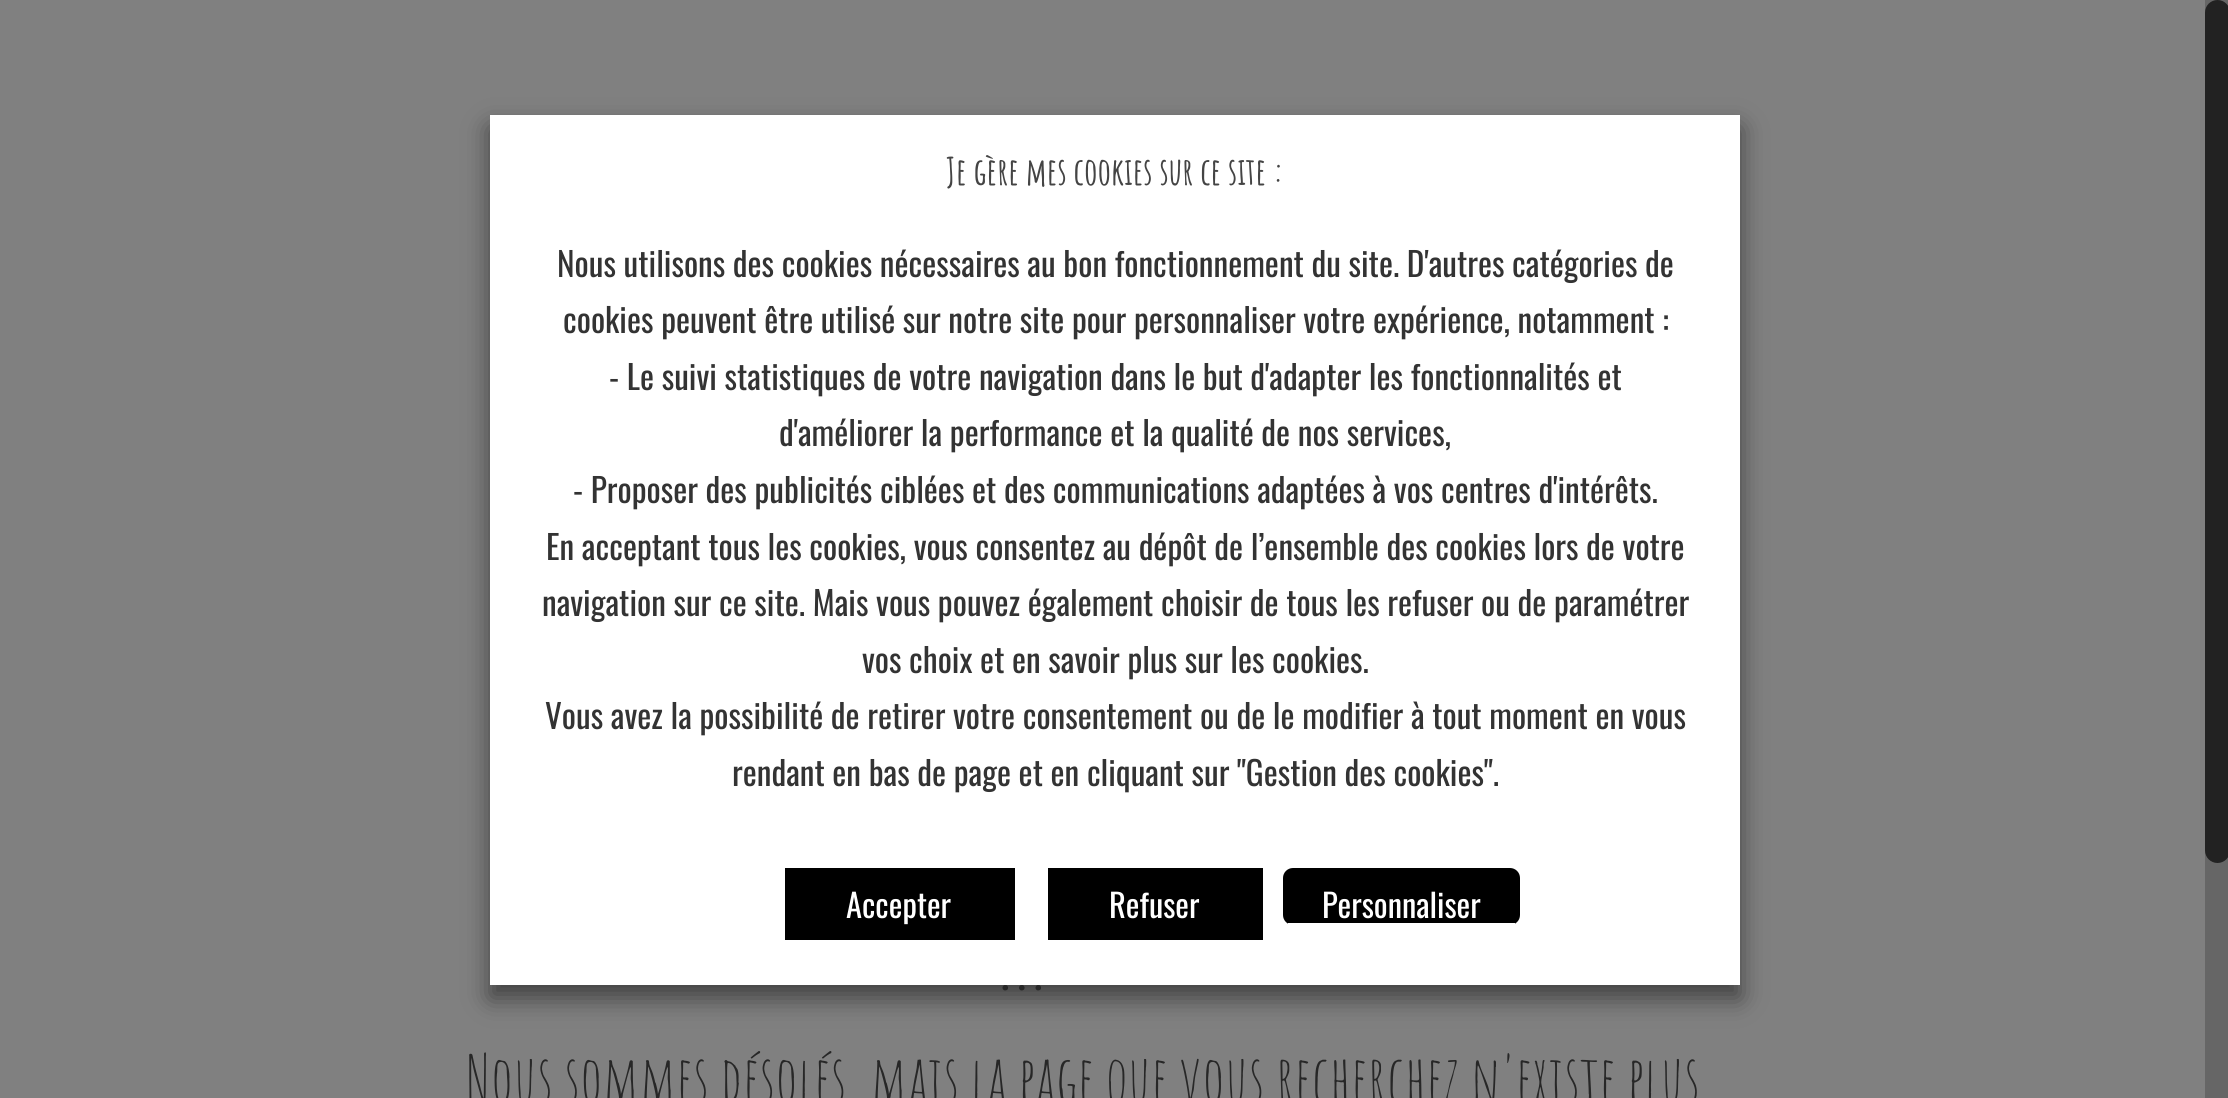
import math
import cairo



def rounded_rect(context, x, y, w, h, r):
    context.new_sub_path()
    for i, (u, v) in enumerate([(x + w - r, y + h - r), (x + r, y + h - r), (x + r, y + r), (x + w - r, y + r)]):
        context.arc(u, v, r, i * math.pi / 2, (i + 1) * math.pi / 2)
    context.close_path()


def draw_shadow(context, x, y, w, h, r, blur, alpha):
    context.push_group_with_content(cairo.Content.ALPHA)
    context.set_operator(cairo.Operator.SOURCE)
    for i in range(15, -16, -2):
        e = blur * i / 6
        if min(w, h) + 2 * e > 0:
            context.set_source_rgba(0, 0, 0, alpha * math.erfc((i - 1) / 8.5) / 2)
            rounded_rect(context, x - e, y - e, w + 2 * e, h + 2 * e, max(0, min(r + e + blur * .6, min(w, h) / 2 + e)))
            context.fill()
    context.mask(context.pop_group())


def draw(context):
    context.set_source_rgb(128 / 255, 128 / 255, 128 / 255)
    context.paint()
    context.set_source_rgb(0, 0, 0)
    draw_shadow(context, 490, 128, 1250, 870, 0, 12.5, 0.5)
    context.set_source_rgb(102 / 255, 102 / 255, 102 / 255)
    context.rectangle(2205, 0, 23, 1098)
    context.fill()
    context.set_source_rgb(34 / 255, 34 / 255, 34 / 255)
    rounded_rect(context, 2205, 0, 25, 863, 12.5)
    context.fill()
    context.select_font_face("Amatic SC")
    context.set_font_size(112)
    context.set_source_rgb(39 / 255, 39 / 255, 39 / 255)
    context.move_to(997, 990)
    context.show_text("...")
    context.set_source_rgb(1, 1, 1)
    context.rectangle(490, 115, 1250, 870)
    context.fill()
    context.set_source_rgb(0, 0, 0)
    rounded_rect(context, 1283, 868, 237, 57, 10)
    context.fill()
    context.select_font_face("Oswald")
    context.set_font_size(32.5)
    context.set_source_rgb(1, 1, 1)
    context.move_to(1322, 918)
    context.show_text("Personnaliser")
    context.rectangle(1288, 923, 227, 2)
    context.fill()
    context.set_source_rgb(0, 0, 0)
    context.rectangle(1048, 868, 215, 72)
    context.fill()
    context.set_source_rgb(1, 1, 1)
    context.move_to(1109, 918)
    context.show_text("Refuser")
    context.set_source_rgb(0, 0, 0)
    context.rectangle(785, 868, 230, 72)
    context.fill()
    context.set_source_rgb(1, 1, 1)
    context.move_to(846, 918)
    context.show_text("Accepter")
    context.set_font_size(33.35)
    context.set_source_rgb(51 / 255, 51 / 255, 51 / 255)
    context.move_to(732, 786)
    context.show_text("rendant en bas de page et en cliquant sur \"Gestion des cookies\".")
    context.move_to(545, 729)
    context.show_text("Vous avez la possibilité de retirer votre consentement ou de le modifier à tout moment en vous")
    context.move_to(862, 673)
    context.show_text("vos choix et en savoir plus sur les cookies.")
    context.move_to(542, 616)
    context.show_text("navigation sur ce site. Mais vous pouvez également choisir de tous les refuser ou de paramétrer")
    context.move_to(546, 560)
    context.show_text("En acceptant tous les cookies, vous consentez au dépôt de l’ensemble des cookies lors de votre")
    context.move_to(573, 503)
    context.show_text("- Proposer des publicités ciblées et des communications adaptées à vos centres d'intérêts.")
    context.move_to(779, 446)
    context.show_text("d'améliorer la performance et la qualité de nos services,")
    context.move_to(609, 390)
    context.show_text("- Le suivi statistiques de votre navigation dans le but d'adapter les fonctionnalités et")
    context.move_to(563, 333)
    context.show_text("cookies peuvent être utilisé sur notre site pour personnaliser votre expérience, notamment :")
    context.move_to(557, 277)
    context.show_text("Nous utilisons des cookies nécessaires au bon fonctionnement du site. D'autres catégories de")
    context.select_font_face("Amatic SC", cairo.FontSlant.NORMAL, cairo.FontWeight.BOLD)
    context.set_font_size(37.5)
    context.set_source_rgb(68 / 255, 68 / 255, 68 / 255)
    context.move_to(946, 185)
    context.show_text("Je gère mes cookies sur ce site :")
    context.select_font_face("Amatic SC")
    context.set_font_size(65)
    context.set_source_rgb(39 / 255, 39 / 255, 39 / 255)
    context.move_to(466, 1103)
    context.show_text("Nous sommes désolés, mais la page que vous recherchez n'existe plus")


surface = cairo.ImageSurface(cairo.Format.RGB24, 2228, 1098)
context = cairo.Context(surface)
options = cairo.FontOptions()
options.set_hint_metrics(cairo.HintMetrics.OFF)
options.set_hint_style(cairo.HintStyle.NONE)
context.set_font_options(options)
context.set_miter_limit(4)
draw(context)
surface.write_to_png("out.png")
